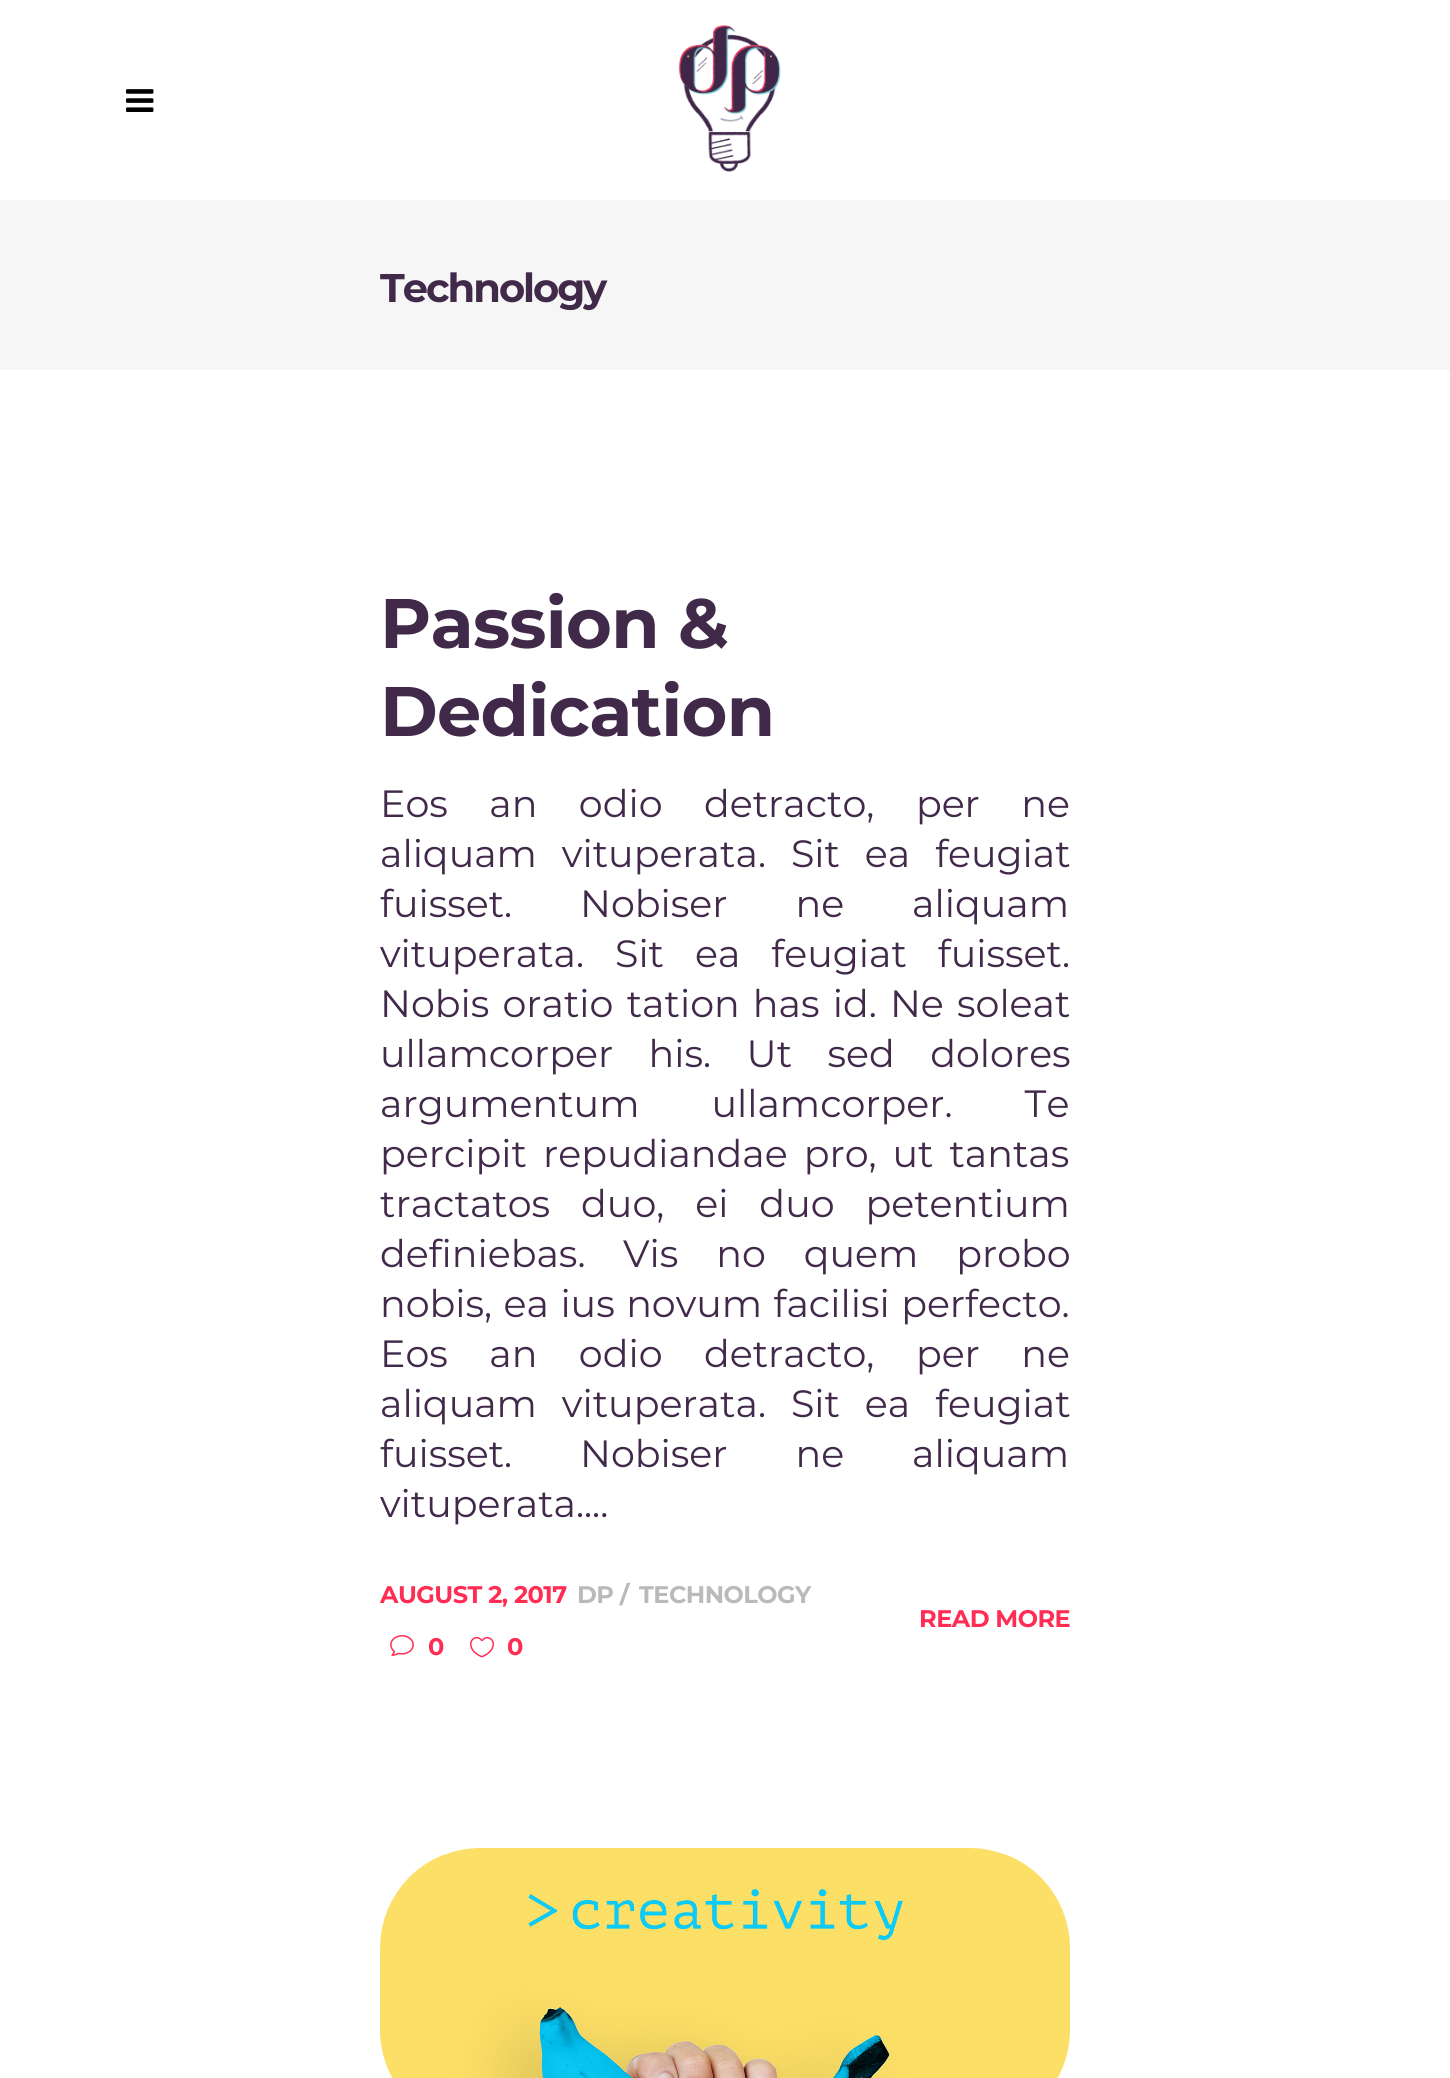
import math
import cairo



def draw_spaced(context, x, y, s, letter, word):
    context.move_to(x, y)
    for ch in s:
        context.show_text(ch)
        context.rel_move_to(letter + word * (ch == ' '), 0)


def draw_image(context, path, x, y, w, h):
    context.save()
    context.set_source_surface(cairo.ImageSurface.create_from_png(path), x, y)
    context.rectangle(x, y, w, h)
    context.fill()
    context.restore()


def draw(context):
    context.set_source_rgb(1, 1, 1)
    context.paint()
    draw_image(context, "images/1.png", 126, 89, 28, 23)
    draw_image(context, "images/2.png", 678, 25, 103, 147)
    context.set_source_rgb(246 / 255, 246 / 255, 246 / 255)
    context.rectangle(0, 200, 1450, 170)
    context.fill()
    draw_image(context, "images/3.png", 390, 1635, 24, 21)
    draw_image(context, "images/4.png", 470, 1636, 24, 22)
    draw_image(context, "images/5.png", 380, 1848, 690, 230)
    context.select_font_face("Montserrat", cairo.FontSlant.NORMAL, cairo.FontWeight.BOLD)
    context.set_font_size(40)
    context.set_source_rgb(65 / 255, 41 / 255, 74 / 255)
    draw_spaced(context, 380, 302, "Technology", -2, 0)
    context.set_font_size(70)
    draw_spaced(context, 380, 648, "Passion &", -0.75, 0)
    draw_spaced(context, 380, 736, "Dedication", -0.75, 0)
    context.select_font_face("Montserrat")
    context.set_font_size(38)
    draw_spaced(context, 380, 817, "Eos an odio detracto, per ne", 0, 31.5)
    draw_spaced(context, 380, 867, "aliquam vituperata. Sit ea feugiat", 0, 15)
    draw_spaced(context, 380, 917, "fuisset. Nobiser ne aliquam", 0, 58)
    draw_spaced(context, 380, 967, "vituperata. Sit ea feugiat fuisset.", 0, 21)
    draw_spaced(context, 380, 1017, "Nobis oratio tation has id. Ne soleat", 0, 3.25)
    draw_spaced(context, 380, 1067, "ullamcorper his. Ut sed dolores", 0, 25.5)
    draw_spaced(context, 380, 1117, "argumentum ullamcorper. Te", 0, 62)
    draw_spaced(context, 380, 1167, "percipit repudiandae pro, ut tantas", 0, 6)
    draw_spaced(context, 380, 1217, "tractatos duo, ei duo petentium", 0, 21)
    context.move_to(380, 1267)
    context.show_text("definiebas.")
    draw_spaced(context, 623, 1267, "Vis no quem probo", 0, 28)
    draw_spaced(context, 380, 1317, "nobis, ea ius novum facilisi perfecto.", 0, 1.5)
    draw_spaced(context, 380, 1367, "Eos an odio detracto, per ne", 0, 31.5)
    draw_spaced(context, 380, 1417, "aliquam vituperata. Sit ea feugiat", 0, 15)
    draw_spaced(context, 380, 1467, "fuisset. Nobiser ne aliquam", 0, 58)
    context.move_to(380, 1517)
    context.show_text("vituperata....")
    context.select_font_face("Montserrat", cairo.FontSlant.NORMAL, cairo.FontWeight.BOLD)
    context.set_font_size(24)
    context.set_source_rgb(1, 44 / 255, 84 / 255)
    draw_spaced(context, 380, 1603, "AUGUST 2, 2017", -0.5, 0)
    context.set_source_rgb(186 / 255, 186 / 255, 186 / 255)
    draw_spaced(context, 577, 1603, "DP /", -0.5, 0)
    draw_spaced(context, 639, 1603, "TECHNOLOGY", -0.5, 0)
    context.set_source_rgb(1, 44 / 255, 84 / 255)
    draw_spaced(context, 428, 1655, "0", -0.5, 0)
    draw_spaced(context, 507, 1655, "0", -0.5, 0)
    draw_spaced(context, 919, 1627, "READ MORE", -0.5, 0)


surface = cairo.ImageSurface(cairo.Format.RGB24, 1450, 2078)
context = cairo.Context(surface)
options = cairo.FontOptions()
options.set_hint_metrics(cairo.HintMetrics.OFF)
options.set_hint_style(cairo.HintStyle.NONE)
context.set_font_options(options)
context.set_miter_limit(4)
draw(context)
surface.write_to_png("out.png")
